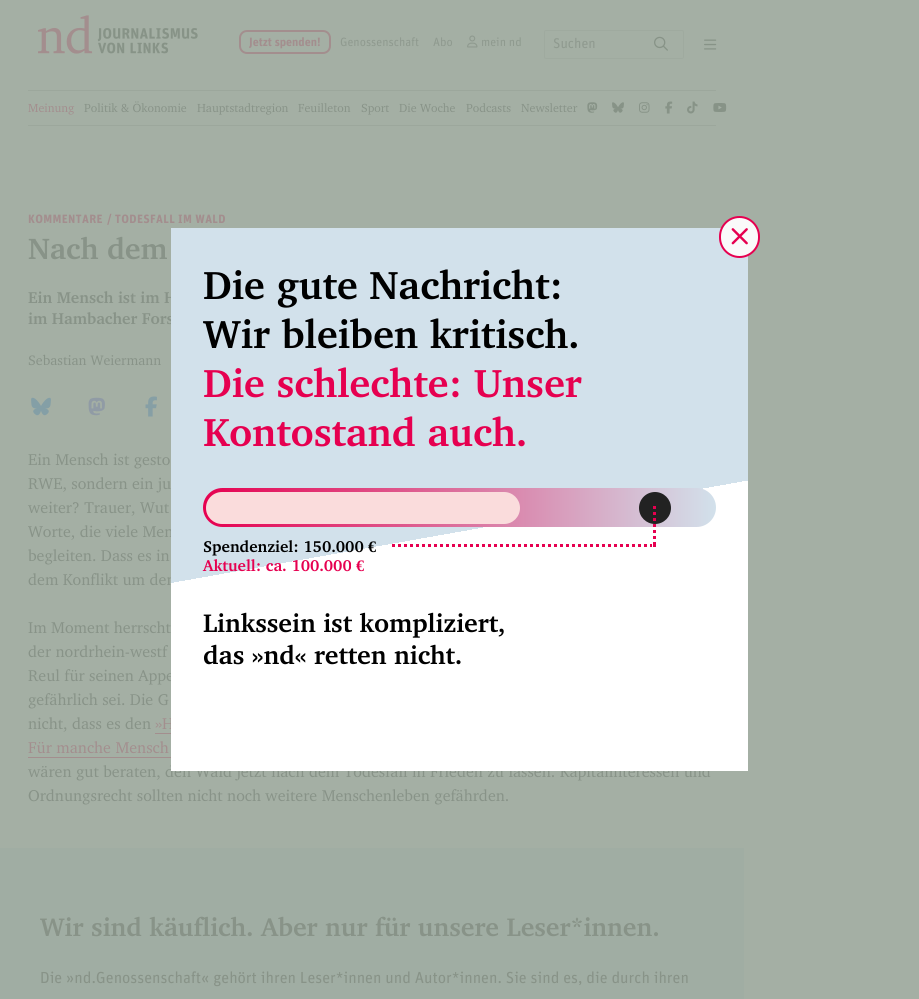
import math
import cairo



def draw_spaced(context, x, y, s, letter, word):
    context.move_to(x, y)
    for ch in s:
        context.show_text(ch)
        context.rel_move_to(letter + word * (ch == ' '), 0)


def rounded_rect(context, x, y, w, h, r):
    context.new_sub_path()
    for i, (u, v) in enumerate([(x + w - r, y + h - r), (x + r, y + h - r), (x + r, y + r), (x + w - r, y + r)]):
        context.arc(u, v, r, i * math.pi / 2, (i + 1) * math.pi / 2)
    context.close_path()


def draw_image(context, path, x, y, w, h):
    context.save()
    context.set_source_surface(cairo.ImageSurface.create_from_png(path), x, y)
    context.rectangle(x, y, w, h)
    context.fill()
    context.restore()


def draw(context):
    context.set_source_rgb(164 / 255, 175 / 255, 164 / 255)
    context.paint()
    draw_image(context, "images/1.png", 38, 15, 160, 39)
    rounded_rect(context, 240, 31, 90, 22, 7)
    context.set_source_rgb(163 / 255, 142 / 255, 142 / 255)
    context.stroke()
    draw_image(context, "images/2.png", 467, 35, 11, 13)
    rounded_rect(context, 544.5, 30.5, 139, 28, 1.5)
    context.set_source_rgb(159 / 255, 170 / 255, 159 / 255)
    context.set_line_width(1)
    context.stroke()
    draw_image(context, "images/3.png", 654, 36, 14, 15)
    draw_image(context, "images/4.png", 704, 39, 13, 11)
    context.set_source_rgb(156 / 255, 167 / 255, 156 / 255)
    context.rectangle(28, 90, 688, 1)
    context.fill()
    context.rectangle(28, 125, 688, 1)
    context.fill()
    draw_image(context, "images/5.png", 587, 102, 11, 11)
    draw_image(context, "images/6.png", 612, 102, 12, 11)
    draw_image(context, "images/7.png", 639, 102, 11, 11)
    draw_image(context, "images/8.png", 665, 101, 8, 13)
    draw_image(context, "images/9.png", 687, 101, 11, 13)
    draw_image(context, "images/10.png", 713, 103, 14, 9)
    draw_image(context, "images/11.png", 31, 397, 20, 19)
    draw_image(context, "images/12.png", 88, 397, 17, 19)
    draw_image(context, "images/13.png", 145, 396, 12, 21)
    context.set_source_rgb(163 / 255, 142 / 255, 142 / 255)
    context.rectangle(155, 733, 16, 1)
    context.fill()
    context.rectangle(28, 757, 143, 1)
    context.fill()
    context.set_source_rgb(160 / 255, 173 / 255, 163 / 255)
    context.rectangle(0, 848, 744, 151)
    context.fill()
    context.select_font_face("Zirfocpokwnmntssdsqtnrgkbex", cairo.FontSlant.NORMAL, cairo.FontWeight.BOLD)
    context.set_font_size(12)
    context.set_source_rgb(163 / 255, 142 / 255, 142 / 255)
    context.move_to(249, 46)
    context.show_text("Jetzt spenden!")
    context.select_font_face("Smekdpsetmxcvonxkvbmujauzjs")
    context.set_source_rgb(143 / 255, 154 / 255, 143 / 255)
    context.move_to(340, 46)
    context.show_text("Genossenschaft")
    context.move_to(433, 46)
    context.show_text("Abo")
    context.move_to(481, 46)
    context.show_text("mein nd")
    context.set_font_size(14)
    context.move_to(553, 48)
    context.show_text("Suchen")
    context.select_font_face("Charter")
    context.set_font_size(12)
    context.set_source_rgb(163 / 255, 142 / 255, 142 / 255)
    context.move_to(28, 112)
    context.show_text("Meinung")
    context.set_source_rgb(136 / 255, 147 / 255, 136 / 255)
    context.move_to(84, 112)
    context.show_text("Politik & Ökonomie")
    context.move_to(197, 112)
    context.show_text("Hauptstadtregion")
    context.move_to(298, 112)
    context.show_text("Feuilleton")
    context.move_to(361, 112)
    context.show_text("Sport")
    context.move_to(399, 112)
    context.show_text("Die Woche")
    context.move_to(466, 112)
    context.show_text("Podcasts")
    context.move_to(521, 112)
    context.show_text("Newsletter")
    context.select_font_face("Zirfocpokwnmntssdsqtnrgkbex", cairo.FontSlant.NORMAL, cairo.FontWeight.BOLD)
    context.set_source_rgb(163 / 255, 142 / 255, 142 / 255)
    draw_spaced(context, 28, 223, "KOMMENTARE", 0.3, 0)
    draw_spaced(context, 107, 223, "/ TODESFALL IM WALD", 0.3, 0)
    context.select_font_face("Charter", cairo.FontSlant.NORMAL, cairo.FontWeight.BOLD)
    context.set_font_size(30)
    context.set_source_rgb(136 / 255, 147 / 255, 136 / 255)
    context.move_to(28, 259)
    context.show_text("Nach dem")
    context.set_font_size(16)
    context.move_to(28, 303)
    context.show_text("Ein Mensch ist im H")
    context.move_to(28, 324)
    context.show_text("im Hambacher Fors")
    context.select_font_face("Charter")
    context.set_font_size(14)
    context.move_to(28, 365)
    context.show_text("Sebastian Weiermann")
    context.set_font_size(16)
    context.move_to(28, 465)
    context.show_text("Ein Mensch ist gesto")
    context.move_to(28, 489)
    context.show_text("RWE, sondern ein ju")
    context.move_to(28, 513)
    context.show_text("weiter? Trauer, Wut")
    context.move_to(28, 537)
    context.show_text("Worte, die viele Men")
    context.move_to(28, 561)
    context.show_text("begleiten. Dass es in")
    context.move_to(28, 585)
    context.show_text("dem Konflikt um den")
    context.move_to(28, 633)
    context.show_text("Im Moment herrscht")
    context.move_to(28, 657)
    context.show_text("der nordrhein-westf")
    context.move_to(28, 681)
    context.show_text("Reul für seinen Appe")
    context.move_to(28, 705)
    context.show_text("gefährlich sei. Die G")
    context.move_to(28, 729)
    context.show_text("nicht, dass es den")
    context.set_source_rgb(163 / 255, 142 / 255, 142 / 255)
    context.move_to(155, 729)
    context.show_text("»H")
    context.move_to(28, 753)
    context.show_text("Für manche Mensch")
    context.set_source_rgb(136 / 255, 147 / 255, 136 / 255)
    context.move_to(28, 777)
    context.show_text("wären gut beraten, den Wald jetzt nach dem Todesfall in Frieden zu lassen. Kapitalinteressen und")
    context.move_to(28, 801)
    context.show_text("Ordnungsrecht sollten nicht noch weitere Menschenleben gefährden.")
    context.select_font_face("Charter", cairo.FontSlant.NORMAL, cairo.FontWeight.BOLD)
    context.set_font_size(26)
    context.move_to(40, 936)
    context.show_text("Wir sind käuflich. Aber nur für unsere Leser*innen.")
    context.select_font_face("Smekdpsetmxcvonxkvbmujauzjs")
    context.set_font_size(16)
    context.move_to(40, 983)
    context.show_text("Die »nd.Genossenschaft« gehört ihren Leser*innen und Autor*innen. Sie sind es, die durch ihren")
    gradient = cairo.LinearGradient(515, 812, 404, 187)
    gradient.add_color_stop_rgba(0.45, 1, 1, 1, 1)
    gradient.add_color_stop_rgba(0.45, 210 / 255, 225 / 255, 235 / 255, 1)
    context.set_source(gradient)
    context.rectangle(171, 228, 577, 543)
    context.fill()
    context.set_source_rgb(250 / 255, 250 / 255, 250 / 255)
    rounded_rect(context, 720, 217, 39, 40, 19.5)
    context.fill_preserve()
    context.set_source_rgb(230 / 255, 0, 80 / 255)
    context.set_line_width(2)
    context.stroke()
    draw_image(context, "images/14.png", 731, 228, 17, 17)
    context.select_font_face("Charter", cairo.FontSlant.NORMAL, cairo.FontWeight.BOLD)
    context.set_font_size(40)
    context.set_source_rgb(0, 0, 0)
    context.move_to(203, 299)
    context.show_text("Die gute Nachricht:")
    context.move_to(203, 348)
    context.show_text("Wir bleiben kritisch.")
    context.set_source_rgb(230 / 255, 0, 80 / 255)
    context.move_to(203, 397)
    context.show_text("Die schlechte: Unser")
    context.move_to(203, 446)
    context.show_text("Kontostand auch.")
    gradient = cairo.LinearGradient(203, 508, 716, 508)
    gradient.add_color_stop_rgba(0, 230 / 255, 0, 80 / 255, 1)
    gradient.add_color_stop_rgba(1, 210 / 255, 225 / 255, 235 / 255, 1)
    context.set_source(gradient)
    rounded_rect(context, 203, 488, 513, 39, 19.5)
    context.fill()
    context.set_source_rgb(250 / 255, 220 / 255, 220 / 255)
    rounded_rect(context, 206, 492, 314, 32, 16)
    context.fill()
    context.set_source_rgb(34 / 255, 34 / 255, 34 / 255)
    context.arc(655, 508, 16, 0, 2 * math.pi)
    context.fill()
    context.new_path()
    context.move_to(654.5, 506)
    context.line_to(654.5, 547)
    context.set_source_rgb(230 / 255, 0, 80 / 255)
    context.set_line_width(3)
    context.set_dash([3, 3])
    context.stroke()
    context.rectangle(653, 545, 3, 2)
    context.fill()
    context.set_font_size(16)
    context.set_source_rgb(0, 0, 0)
    context.move_to(203, 552)
    context.show_text("Spendenziel: 150.000")
    context.select_font_face("Liberation Serif", cairo.FontSlant.NORMAL, cairo.FontWeight.BOLD)
    context.move_to(368, 552)
    context.show_text("€")
    context.new_path()
    context.move_to(392, 545.5)
    context.line_to(652, 545.5)
    context.set_source_rgb(230 / 255, 0, 80 / 255)
    context.stroke()
    context.select_font_face("Charter", cairo.FontSlant.NORMAL, cairo.FontWeight.BOLD)
    context.move_to(203, 571)
    context.show_text("Aktuell: ca. 100.000")
    context.select_font_face("Liberation Serif", cairo.FontSlant.NORMAL, cairo.FontWeight.BOLD)
    context.move_to(356, 571)
    context.show_text("€")
    context.select_font_face("Charter", cairo.FontSlant.NORMAL, cairo.FontWeight.BOLD)
    context.set_font_size(26)
    context.set_source_rgb(0, 0, 0)
    context.move_to(203, 632)
    context.show_text("Linkssein ist kompliziert,")
    context.move_to(203, 664)
    context.show_text("das »nd« retten nicht.")


surface = cairo.ImageSurface(cairo.Format.RGB24, 919, 999)
context = cairo.Context(surface)
options = cairo.FontOptions()
options.set_hint_metrics(cairo.HintMetrics.OFF)
options.set_hint_style(cairo.HintStyle.NONE)
context.set_font_options(options)
context.set_miter_limit(4)
draw(context)
surface.write_to_png("out.png")
